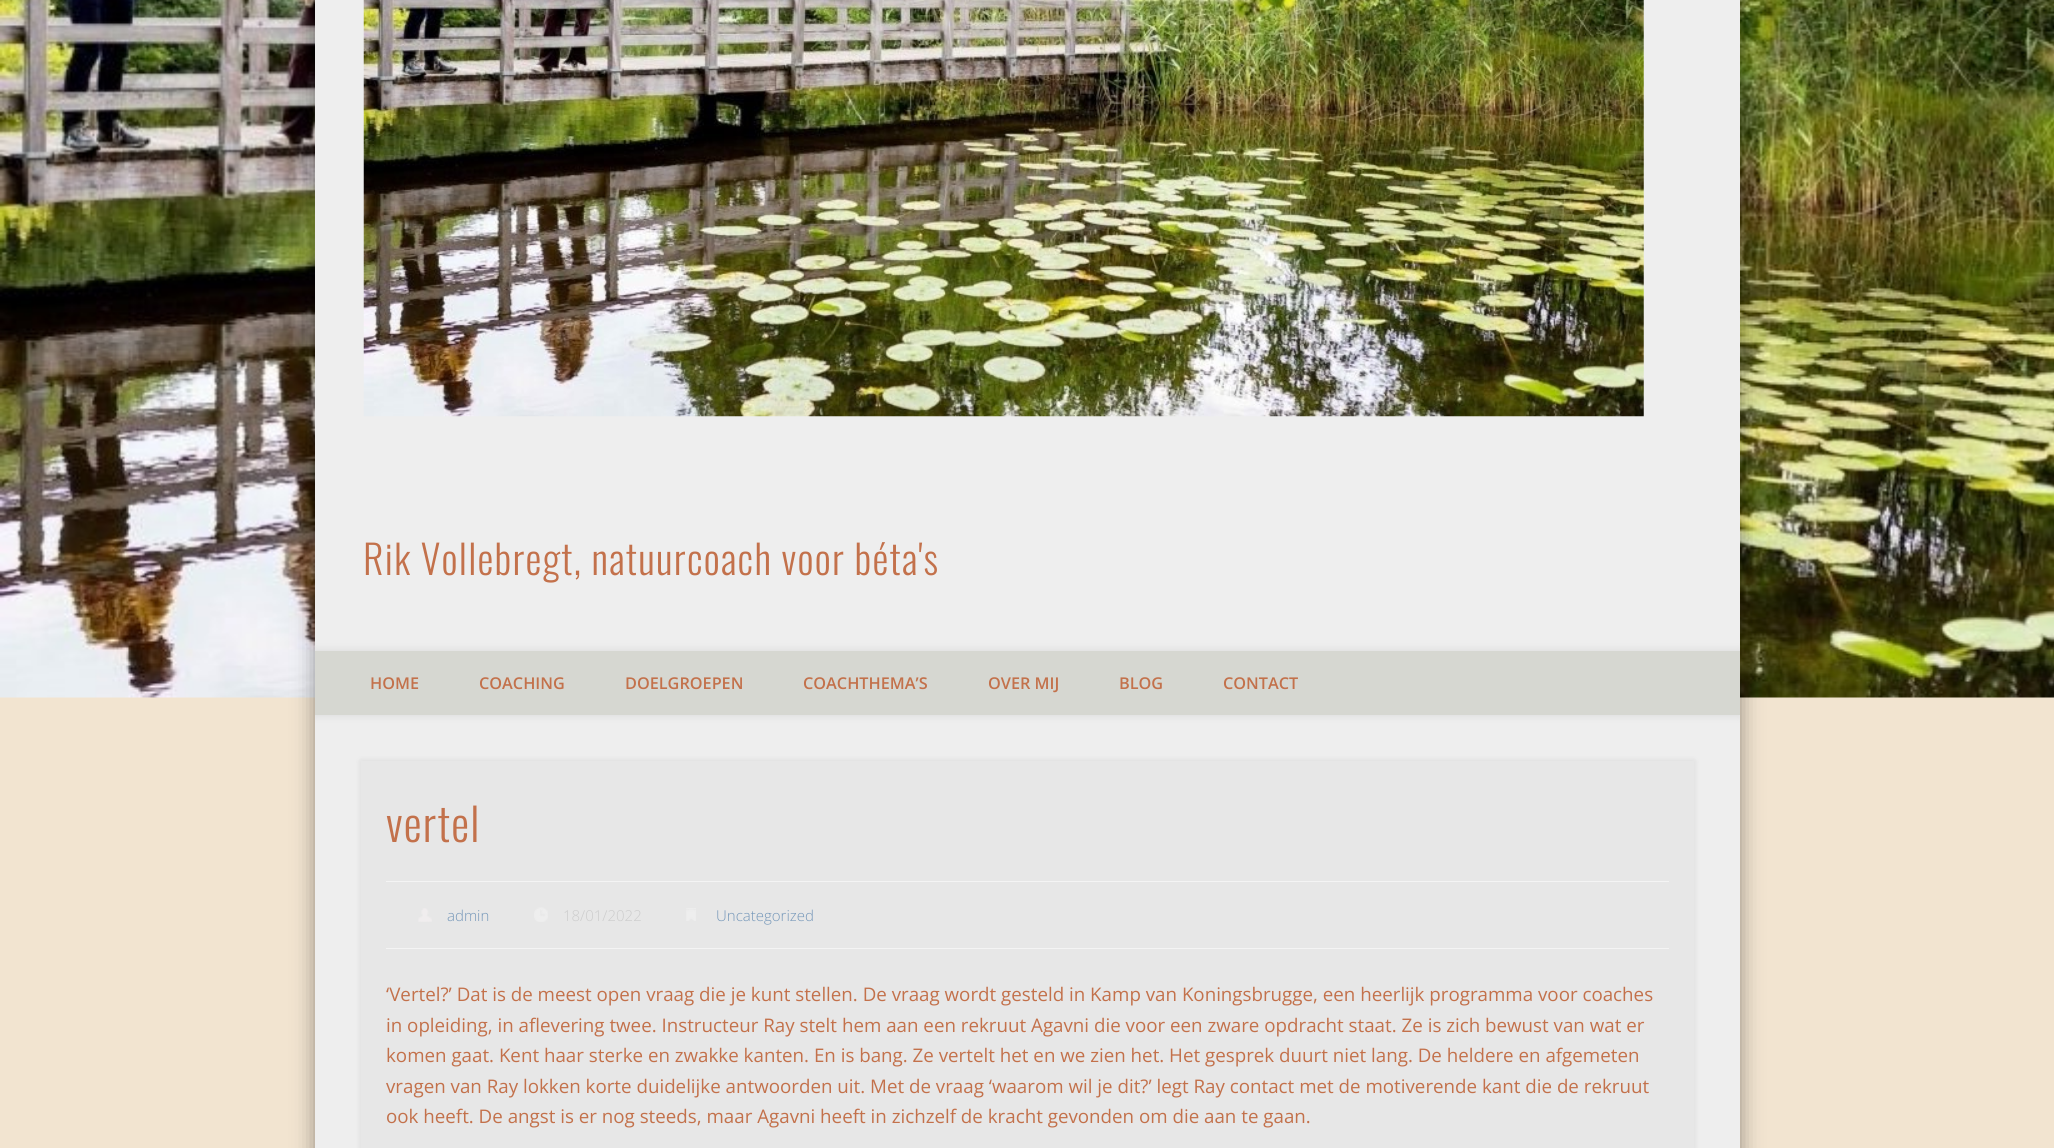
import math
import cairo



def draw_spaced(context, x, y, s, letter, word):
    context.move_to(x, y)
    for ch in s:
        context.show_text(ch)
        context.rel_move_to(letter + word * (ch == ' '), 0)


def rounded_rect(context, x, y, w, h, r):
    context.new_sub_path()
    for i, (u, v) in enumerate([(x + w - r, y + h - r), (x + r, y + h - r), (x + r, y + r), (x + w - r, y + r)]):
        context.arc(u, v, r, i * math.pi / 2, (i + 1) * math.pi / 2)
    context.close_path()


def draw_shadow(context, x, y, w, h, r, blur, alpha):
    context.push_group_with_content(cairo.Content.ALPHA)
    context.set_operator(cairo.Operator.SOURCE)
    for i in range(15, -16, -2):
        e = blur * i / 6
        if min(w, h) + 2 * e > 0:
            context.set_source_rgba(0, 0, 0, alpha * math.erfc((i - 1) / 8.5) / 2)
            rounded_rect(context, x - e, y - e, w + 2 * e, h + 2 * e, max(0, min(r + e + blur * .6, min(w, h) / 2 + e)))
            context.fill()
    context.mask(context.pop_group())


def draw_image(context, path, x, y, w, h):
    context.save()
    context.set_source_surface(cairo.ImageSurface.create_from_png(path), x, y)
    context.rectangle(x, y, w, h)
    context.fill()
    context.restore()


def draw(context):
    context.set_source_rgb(242 / 255, 228 / 255, 208 / 255)
    context.paint()
    draw_image(context, "images/1.png", 0, 0, 2054, 698)
    context.set_source_rgb(0, 0, 0)
    draw_shadow(context, 315, -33, 1425, 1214, 0, 11, 0.4)
    context.set_source_rgb(238 / 255, 238 / 255, 238 / 255)
    context.rectangle(315, 0, 1425, 1148)
    context.fill()
    draw_image(context, "images/2.png", 363, 0, 1281, 417)
    context.save()
    context.rectangle(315, 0, 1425, 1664)
    context.clip()
    context.set_source_rgb(0, 0, 0)
    draw_shadow(context, 315, 651, 1425, 64, 0, 4.5, 0.1)
    context.restore()
    context.set_source_rgb(214 / 255, 215 / 255, 209 / 255)
    context.rectangle(315, 651, 1425, 64)
    context.fill()
    context.set_source_rgb(0, 0, 0)
    draw_shadow(context, 361, 761, 1333, 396, 0, 3, 0.1)
    context.set_source_rgb(231 / 255, 231 / 255, 231 / 255)
    context.rectangle(361, 761, 1333, 387)
    context.fill()
    context.set_source_rgb(244 / 255, 244 / 255, 244 / 255)
    context.rectangle(386, 881, 1283, 1)
    context.fill()
    context.rectangle(386, 948, 1283, 1)
    context.fill()
    draw_image(context, "images/3.png", 418, 908, 14, 14)
    draw_image(context, "images/4.png", 534, 907, 14, 15)
    draw_image(context, "images/5.png", 686, 908, 10, 13)
    context.select_font_face("Oswald Light")
    context.set_font_size(40)
    context.set_source_rgb(195 / 255, 113 / 255, 75 / 255)
    draw_spaced(context, 363, 575, "Rik Vollebregt, natuurcoach voor béta's", 1.25, 0)
    context.select_font_face("Open Sans SemiBold")
    context.set_font_size(16.25)
    context.move_to(370, 689)
    context.show_text("HOME")
    context.move_to(479, 689)
    context.show_text("COACHING")
    context.move_to(625, 689)
    context.show_text("DOELGROEPEN")
    context.move_to(803, 689)
    context.show_text("COACHTHEMA’S")
    context.move_to(988, 689)
    context.show_text("OVER MIJ")
    context.move_to(1119, 689)
    context.show_text("BLOG")
    context.move_to(1223, 689)
    context.show_text("CONTACT")
    context.select_font_face("Oswald Light")
    context.set_font_size(45)
    draw_spaced(context, 386, 842, "vertel", 1.25, 0)
    context.select_font_face("Open Sans Light")
    context.set_font_size(15)
    context.set_source_rgb(117 / 255, 151 / 255, 185 / 255)
    context.move_to(447, 921)
    context.show_text("admin")
    context.set_source_rgb(204 / 255, 204 / 255, 204 / 255)
    context.move_to(563, 921)
    context.show_text("18/01/2022")
    context.set_source_rgb(117 / 255, 151 / 255, 185 / 255)
    context.move_to(716, 921)
    context.show_text("Uncategorized")
    context.select_font_face("Open Sans")
    context.set_font_size(18.75)
    context.set_source_rgb(195 / 255, 113 / 255, 75 / 255)
    context.move_to(386, 1001)
    context.show_text("‘Vertel?’ Dat is de meest open vraag die je kunt stellen. De vraag wordt gesteld in Kamp van Koningsbrugge, een heerlijk programma voor coaches")
    context.move_to(386, 1032)
    context.show_text("in opleiding, in aflevering twee. Instructeur Ray stelt hem aan een rekruut Agavni die voor een zware opdracht staat. Ze is zich bewust van wat er")
    context.move_to(386, 1062)
    context.show_text("komen gaat. Kent haar sterke en zwakke kanten. En is bang. Ze vertelt het en we zien het. Het gesprek duurt niet lang. De heldere en afgemeten")
    context.move_to(386, 1093)
    context.show_text("vragen van Ray lokken korte duidelijke antwoorden uit. Met de vraag ‘waarom wil je dit?’ legt Ray contact met de motiverende kant die de rekruut")
    context.move_to(386, 1123)
    context.show_text("ook heeft. De angst is er nog steeds, maar Agavni heeft in zichzelf de kracht gevonden om die aan te gaan.")


surface = cairo.ImageSurface(cairo.Format.RGB24, 2054, 1148)
context = cairo.Context(surface)
options = cairo.FontOptions()
options.set_hint_metrics(cairo.HintMetrics.OFF)
options.set_hint_style(cairo.HintStyle.NONE)
context.set_font_options(options)
context.set_miter_limit(4)
draw(context)
surface.write_to_png("out.png")
